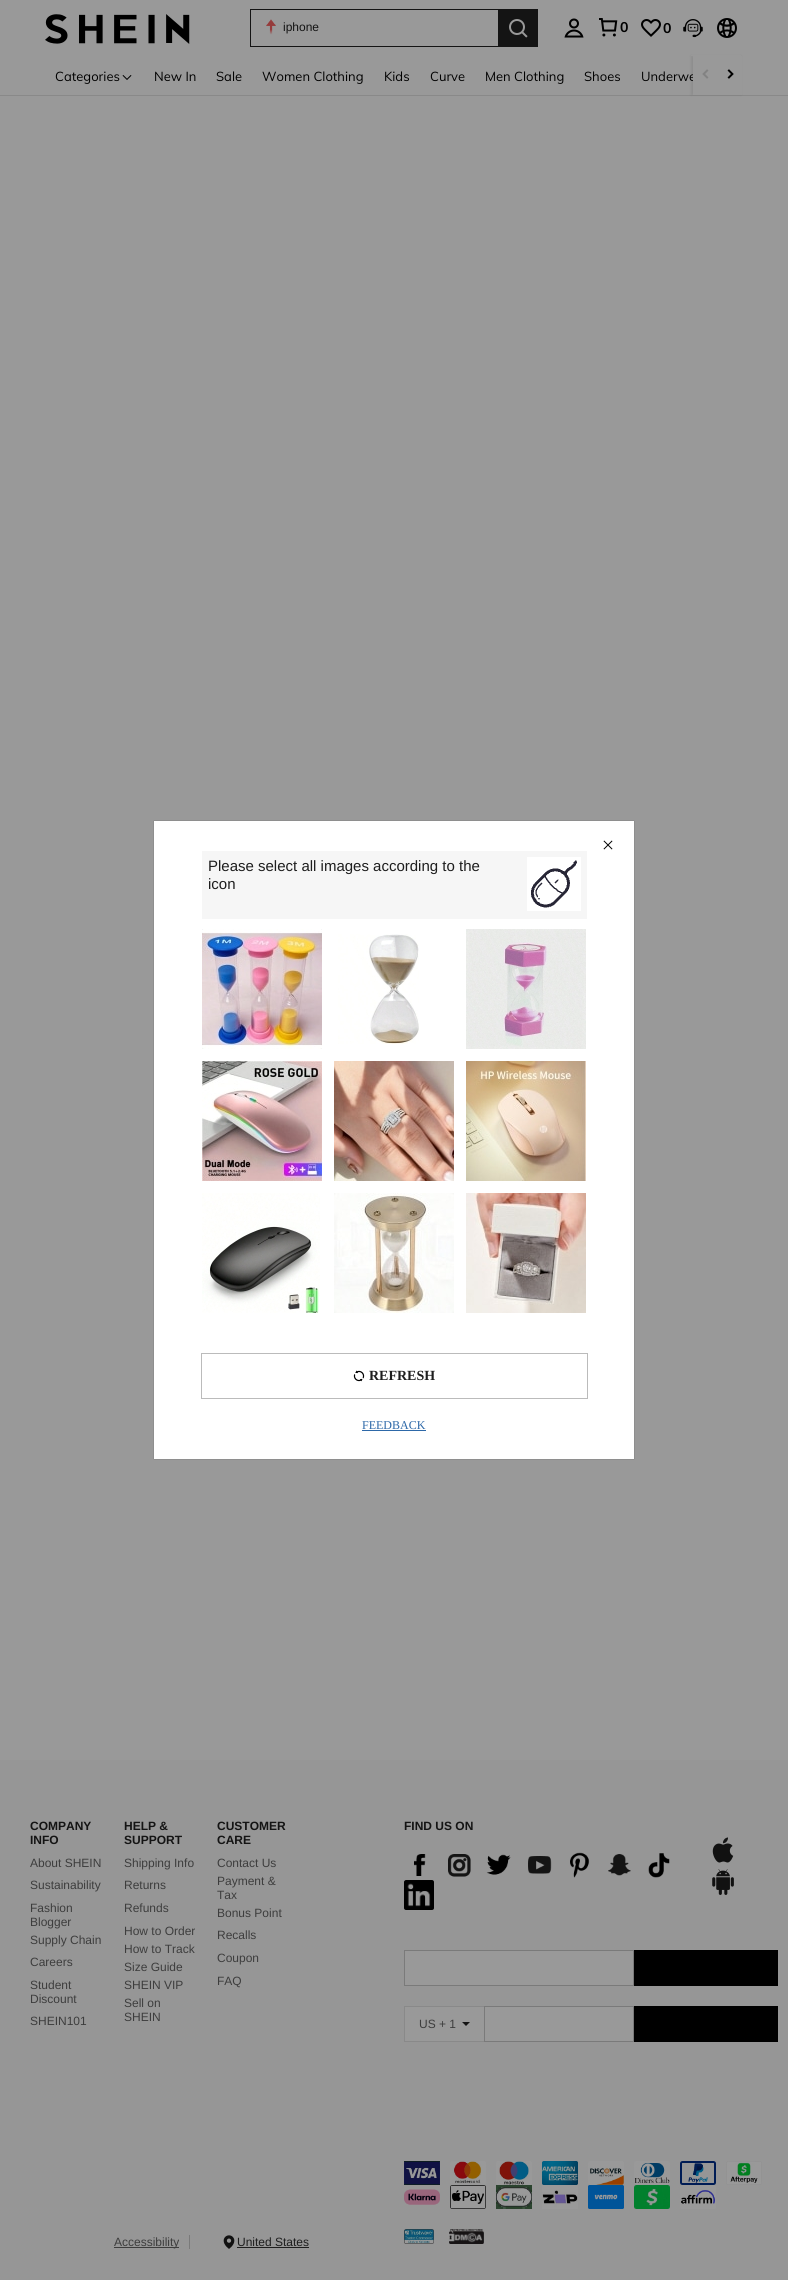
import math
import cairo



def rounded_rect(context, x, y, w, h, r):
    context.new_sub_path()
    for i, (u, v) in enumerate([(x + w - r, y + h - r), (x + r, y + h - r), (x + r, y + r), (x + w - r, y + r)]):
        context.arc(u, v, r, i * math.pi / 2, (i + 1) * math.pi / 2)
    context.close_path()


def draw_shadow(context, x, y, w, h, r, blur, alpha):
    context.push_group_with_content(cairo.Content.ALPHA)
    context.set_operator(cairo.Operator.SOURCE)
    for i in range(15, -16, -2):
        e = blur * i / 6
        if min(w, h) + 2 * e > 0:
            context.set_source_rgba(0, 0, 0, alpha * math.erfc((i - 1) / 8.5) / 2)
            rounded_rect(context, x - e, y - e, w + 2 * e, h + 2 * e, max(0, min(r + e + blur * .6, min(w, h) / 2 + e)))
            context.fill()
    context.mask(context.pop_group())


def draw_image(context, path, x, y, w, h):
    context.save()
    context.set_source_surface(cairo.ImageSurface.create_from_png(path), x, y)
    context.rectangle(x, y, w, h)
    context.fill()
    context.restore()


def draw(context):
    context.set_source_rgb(153 / 255, 153 / 255, 153 / 255)
    context.paint()
    context.set_source_rgb(137 / 255, 137 / 255, 137 / 255)
    context.rectangle(0, 95, 788, 1)
    context.fill()
    context.set_source_rgb(0, 0, 0)
    draw_shadow(context, 691, 56, 50, 39, 0, 1.5, 0.08)
    context.set_source_rgb(153 / 255, 153 / 255, 153 / 255)
    context.rectangle(691, 55, 50, 1)
    context.fill()
    draw_image(context, "images/1.png", 45, 14, 145, 30)
    context.set_source_rgb(20 / 255, 20 / 255, 20 / 255)
    context.rectangle(250, 9, 248, 1)
    context.fill()
    context.rectangle(250, 46, 248, 1)
    context.fill()
    context.rectangle(250, 9, 1, 38)
    context.fill()
    draw_image(context, "images/2.png", 266, 19, 10, 16)
    context.rectangle(498, 9, 40, 38)
    context.fill()
    draw_image(context, "images/3.png", 509, 19, 19, 19)
    draw_image(context, "images/4.png", 564, 18, 20, 20)
    draw_image(context, "images/5.png", 599, 18, 19, 19)
    draw_image(context, "images/6.png", 641, 19, 20, 18)
    draw_image(context, "images/7.png", 683, 19, 20, 19)
    draw_image(context, "images/8.png", 717, 18, 20, 20)
    draw_image(context, "images/9.png", 122, 75, 10, 5)
    context.set_source_rgb(150 / 255, 150 / 255, 150 / 255)
    context.rectangle(0, 1760, 788, 520)
    context.fill()
    draw_image(context, "images/12.png", 414, 1854, 12, 22)
    draw_image(context, "images/13.png", 448, 1854, 23, 23)
    draw_image(context, "images/14.png", 486, 1854, 25, 21)
    draw_image(context, "images/15.png", 528, 1856, 24, 18)
    draw_image(context, "images/16.png", 570, 1852, 20, 26)
    draw_image(context, "images/17.png", 608, 1854, 23, 22)
    draw_image(context, "images/18.png", 648, 1853, 22, 25)
    draw_image(context, "images/19.png", 404, 1880, 30, 30)
    draw_image(context, "images/20.png", 712, 1837, 22, 26)
    draw_image(context, "images/21.png", 712, 1869, 22, 26)
    context.set_source_rgb(153 / 255, 153 / 255, 153 / 255)
    context.rectangle(404.5, 1950.5, 229, 35)
    context.fill_preserve()
    context.set_source_rgb(122 / 255, 122 / 255, 122 / 255)
    context.set_line_width(1)
    context.stroke()
    context.set_source_rgb(0, 0, 0)
    context.rectangle(634, 1950, 144, 36)
    context.fill()
    context.set_source_rgb(153 / 255, 153 / 255, 153 / 255)
    context.rectangle(405, 2007, 79, 34)
    context.fill()
    context.set_source_rgb(137 / 255, 137 / 255, 137 / 255)
    context.rectangle(404, 2006, 80, 1)
    context.fill()
    context.rectangle(404, 2041, 80, 1)
    context.fill()
    context.rectangle(404, 2006, 1, 36)
    context.fill()
    context.set_source_rgb(20 / 255, 20 / 255, 20 / 255)
    context.new_path()
    context.move_to(462, 2022)
    context.line_to(470, 2022)
    context.line_to(466, 2026)
    context.close_path()
    context.fill()
    context.set_source_rgb(153 / 255, 153 / 255, 153 / 255)
    context.rectangle(484.5, 2006.5, 149, 35)
    context.fill_preserve()
    context.set_source_rgb(122 / 255, 122 / 255, 122 / 255)
    context.stroke()
    context.set_source_rgb(0, 0, 0)
    context.rectangle(634, 2006, 144, 36)
    context.fill()
    draw_image(context, "images/22.png", 404, 2161, 36, 24)
    draw_image(context, "images/23.png", 450, 2161, 36, 24)
    draw_image(context, "images/24.png", 496, 2161, 36, 24)
    draw_image(context, "images/25.png", 542, 2161, 36, 24)
    draw_image(context, "images/26.png", 588, 2161, 36, 24)
    draw_image(context, "images/27.png", 634, 2161, 36, 24)
    draw_image(context, "images/28.png", 680, 2161, 36, 24)
    draw_image(context, "images/29.png", 726, 2161, 36, 24)
    draw_image(context, "images/30.png", 404, 2189, 36, 16)
    draw_image(context, "images/31.png", 450, 2185, 36, 24)
    draw_image(context, "images/32.png", 496, 2185, 36, 24)
    draw_image(context, "images/33.png", 542, 2185, 36, 24)
    draw_image(context, "images/34.png", 588, 2185, 36, 24)
    draw_image(context, "images/35.png", 634, 2185, 36, 24)
    draw_image(context, "images/36.png", 680, 2185, 36, 24)
    context.set_source_rgb(122 / 255, 122 / 255, 122 / 255)
    context.rectangle(189, 2235, 1, 14)
    context.fill()
    context.set_source_rgb(61 / 255, 61 / 255, 61 / 255)
    context.rectangle(114, 2247, 65, 1)
    context.fill()
    draw_image(context, "images/37.png", 223, 2235, 12, 14)
    context.set_source_rgb(30 / 255, 30 / 255, 30 / 255)
    context.rectangle(237, 2247, 72, 1)
    context.fill()
    draw_image(context, "images/38.png", 404, 2229, 30, 15)
    draw_image(context, "images/39.png", 449, 2229, 35, 15)
    context.set_source_rgb(0, 0, 0)
    draw_shadow(context, 154, 821, 480, 638, 0, 0.5, 0.3)
    context.set_source_rgb(1, 1, 1)
    context.rectangle(154, 821, 480, 638)
    context.fill()
    draw_image(context, "images/40.png", 603, 840, 10, 10)
    context.set_source_rgb(246 / 255, 246 / 255, 246 / 255)
    context.rectangle(202, 851, 385, 68)
    context.fill()
    context.set_source_rgb(1, 1, 1)
    context.rectangle(527, 857, 54, 54)
    context.fill()
    draw_image(context, "images/41.png", 531, 860, 46, 48)
    draw_image(context, "images/42.png", 202, 929, 120, 120)
    draw_image(context, "images/43.png", 338, 934, 81, 110)
    draw_image(context, "images/44.png", 466, 929, 120, 120)
    draw_image(context, "images/45.png", 202, 1061, 120, 120)
    draw_image(context, "images/46.png", 334, 1061, 120, 120)
    draw_image(context, "images/47.png", 466, 1061, 120, 120)
    draw_image(context, "images/48.png", 202, 1193, 118, 120)
    draw_image(context, "images/49.png", 334, 1193, 120, 120)
    draw_image(context, "images/50.png", 466, 1193, 120, 120)
    context.rectangle(201.5, 1353.5, 386, 45)
    context.set_source_rgb(187 / 255, 187 / 255, 187 / 255)
    context.stroke()
    draw_image(context, "images/51.png", 353, 1370, 12, 12)
    context.set_source_rgb(45 / 255, 104 / 255, 168 / 255)
    context.rectangle(362, 1430, 64, 1)
    context.fill()
    context.select_font_face("Liberation Sans")
    context.set_font_size(12)
    context.set_source_rgb(20 / 255, 20 / 255, 20 / 255)
    context.move_to(283, 31)
    context.show_text("iphone")
    context.select_font_face("Muli", cairo.FontSlant.NORMAL, cairo.FontWeight.BOLD)
    context.set_font_size(14)
    context.set_source_rgb(0, 0, 0)
    context.move_to(620, 32)
    context.show_text("0")
    context.move_to(663, 33)
    context.show_text("0")
    context.select_font_face("Muli")
    context.set_font_size(13)
    context.move_to(55, 81)
    context.show_text("Categories")
    context.move_to(154, 81)
    context.show_text("New In")
    context.move_to(216, 81)
    context.show_text("Sale")
    context.move_to(262, 81)
    context.show_text("Women Clothing")
    context.move_to(384, 81)
    context.show_text("Kids")
    context.move_to(430, 81)
    context.show_text("Curve")
    context.move_to(485, 81)
    context.show_text("Men Clothing")
    context.move_to(584, 81)
    context.show_text("Shoes")
    context.move_to(641, 81)
    context.show_text("Underwe")
    context.set_source_rgb(153 / 255, 153 / 255, 153 / 255)
    context.rectangle(693, 56, 49, 39)
    context.fill()
    draw_image(context, "images/10.png", 702, 69, 7, 10)
    draw_image(context, "images/11.png", 727, 69, 7, 10)
    context.select_font_face("Liberation Sans", cairo.FontSlant.NORMAL, cairo.FontWeight.BOLD)
    context.set_font_size(12)
    context.set_source_rgb(20 / 255, 20 / 255, 20 / 255)
    context.move_to(30, 1830)
    context.show_text("COMPANY")
    context.move_to(30, 1844)
    context.show_text("INFO")
    context.select_font_face("Liberation Sans")
    context.set_source_rgb(61 / 255, 61 / 255, 61 / 255)
    context.move_to(30, 1867)
    context.show_text("About SHEIN")
    context.move_to(30, 1889)
    context.show_text("Sustainability")
    context.move_to(30, 1912)
    context.show_text("Fashion")
    context.move_to(30, 1926)
    context.show_text("Blogger")
    context.move_to(30, 1944)
    context.show_text("Supply Chain")
    context.move_to(30, 1966)
    context.show_text("Careers")
    context.move_to(30, 1989)
    context.show_text("Student")
    context.move_to(30, 2003)
    context.show_text("Discount")
    context.move_to(30, 2025)
    context.show_text("SHEIN101")
    context.select_font_face("Liberation Sans", cairo.FontSlant.NORMAL, cairo.FontWeight.BOLD)
    context.set_source_rgb(20 / 255, 20 / 255, 20 / 255)
    context.move_to(124, 1830)
    context.show_text("HELP &")
    context.move_to(124, 1844)
    context.show_text("SUPPORT")
    context.select_font_face("Liberation Sans")
    context.set_source_rgb(61 / 255, 61 / 255, 61 / 255)
    context.move_to(124, 1867)
    context.show_text("Shipping Info")
    context.move_to(124, 1889)
    context.show_text("Returns")
    context.move_to(124, 1912)
    context.show_text("Refunds")
    context.move_to(124, 1935)
    context.show_text("How to Order")
    context.move_to(124, 1953)
    context.show_text("How to Track")
    context.move_to(124, 1971)
    context.show_text("Size Guide")
    context.move_to(124, 1989)
    context.show_text("SHEIN VIP")
    context.move_to(124, 2007)
    context.show_text("Sell on")
    context.move_to(124, 2021)
    context.show_text("SHEIN")
    context.select_font_face("Liberation Sans", cairo.FontSlant.NORMAL, cairo.FontWeight.BOLD)
    context.set_source_rgb(20 / 255, 20 / 255, 20 / 255)
    context.move_to(217, 1830)
    context.show_text("CUSTOMER")
    context.move_to(217, 1844)
    context.show_text("CARE")
    context.select_font_face("Liberation Sans")
    context.set_source_rgb(61 / 255, 61 / 255, 61 / 255)
    context.move_to(217, 1867)
    context.show_text("Contact Us")
    context.move_to(217, 1885)
    context.show_text("Payment &")
    context.move_to(217, 1899)
    context.show_text("Tax")
    context.move_to(217, 1917)
    context.show_text("Bonus Point")
    context.move_to(217, 1939)
    context.show_text("Recalls")
    context.move_to(217, 1962)
    context.show_text("Coupon")
    context.move_to(217, 1985)
    context.show_text("FAQ")
    context.select_font_face("Liberation Sans", cairo.FontSlant.NORMAL, cairo.FontWeight.BOLD)
    context.set_source_rgb(20 / 255, 20 / 255, 20 / 255)
    context.move_to(404, 1830)
    context.show_text("FIND US ON")
    context.select_font_face("Liberation Sans")
    context.set_source_rgb(61 / 255, 61 / 255, 61 / 255)
    context.move_to(419, 2028)
    context.show_text("US + 1")
    context.move_to(114, 2246)
    context.show_text("Accessibility")
    context.set_source_rgb(30 / 255, 30 / 255, 30 / 255)
    context.move_to(237, 2246)
    context.show_text("United States")
    context.set_font_size(15)
    context.move_to(208, 871)
    context.show_text("Please select all images according to the")
    context.move_to(208, 889)
    context.show_text("icon")
    context.select_font_face("Liberation Serif", cairo.FontSlant.NORMAL, cairo.FontWeight.BOLD)
    context.set_font_size(14)
    context.move_to(369, 1380)
    context.show_text("REFRESH")
    context.select_font_face("Liberation Serif")
    context.set_font_size(12)
    context.set_source_rgb(45 / 255, 104 / 255, 168 / 255)
    context.move_to(362, 1429)
    context.show_text("FEEDBACK")


surface = cairo.ImageSurface(cairo.Format.RGB24, 788, 2280)
context = cairo.Context(surface)
options = cairo.FontOptions()
options.set_hint_metrics(cairo.HintMetrics.OFF)
options.set_hint_style(cairo.HintStyle.NONE)
context.set_font_options(options)
context.set_miter_limit(4)
draw(context)
surface.write_to_png("out.png")
